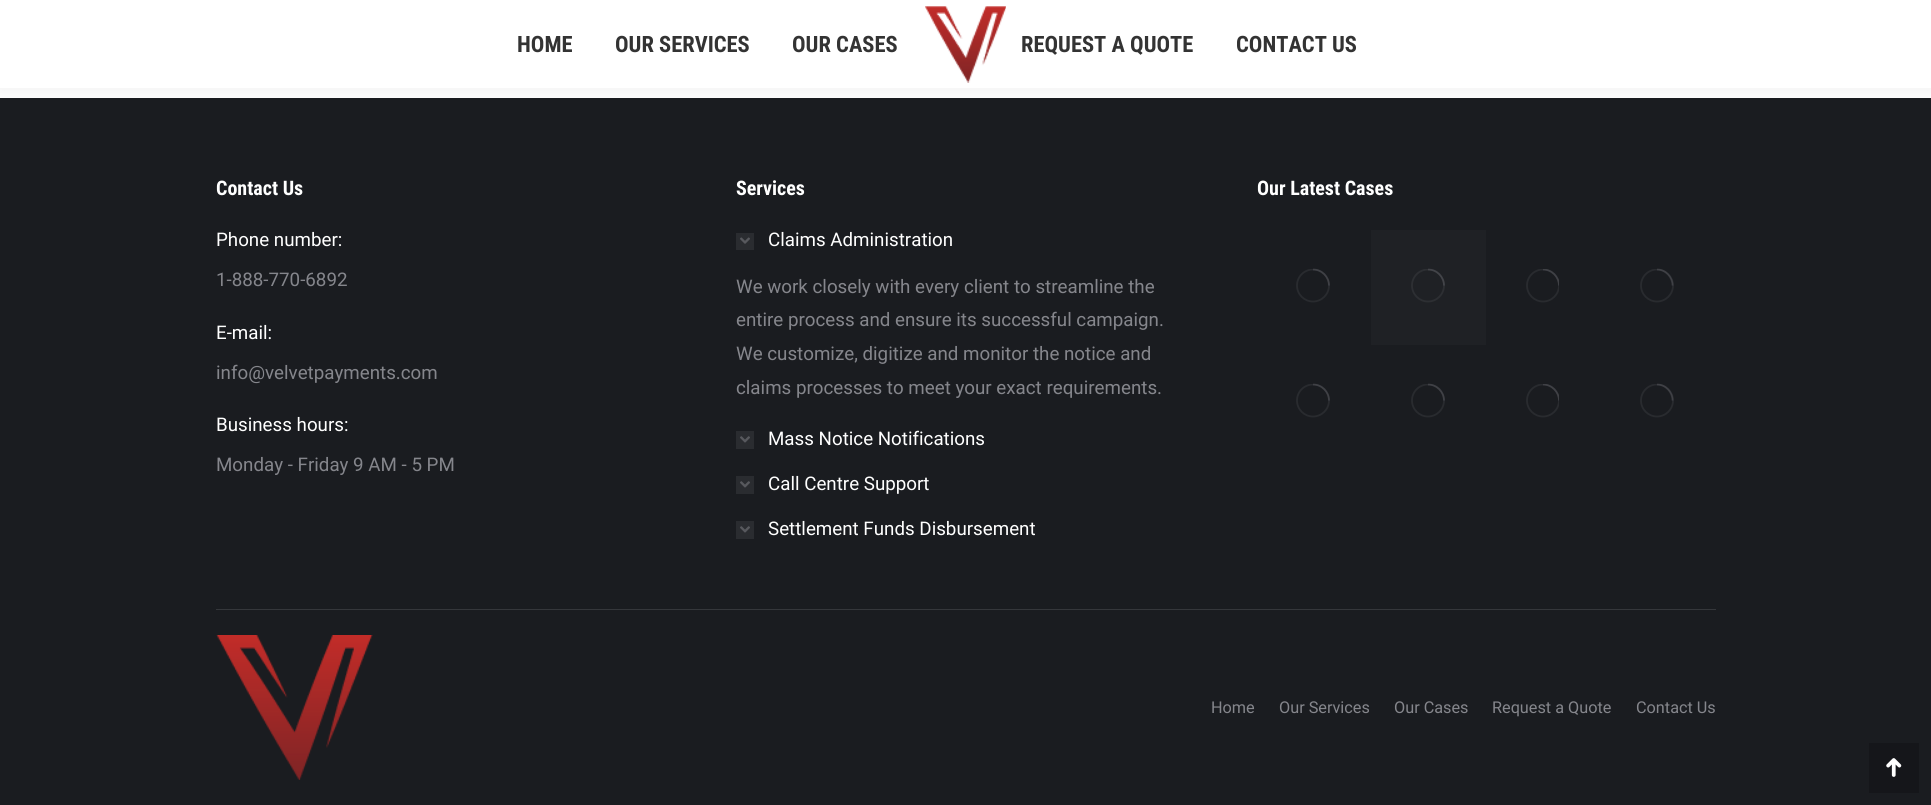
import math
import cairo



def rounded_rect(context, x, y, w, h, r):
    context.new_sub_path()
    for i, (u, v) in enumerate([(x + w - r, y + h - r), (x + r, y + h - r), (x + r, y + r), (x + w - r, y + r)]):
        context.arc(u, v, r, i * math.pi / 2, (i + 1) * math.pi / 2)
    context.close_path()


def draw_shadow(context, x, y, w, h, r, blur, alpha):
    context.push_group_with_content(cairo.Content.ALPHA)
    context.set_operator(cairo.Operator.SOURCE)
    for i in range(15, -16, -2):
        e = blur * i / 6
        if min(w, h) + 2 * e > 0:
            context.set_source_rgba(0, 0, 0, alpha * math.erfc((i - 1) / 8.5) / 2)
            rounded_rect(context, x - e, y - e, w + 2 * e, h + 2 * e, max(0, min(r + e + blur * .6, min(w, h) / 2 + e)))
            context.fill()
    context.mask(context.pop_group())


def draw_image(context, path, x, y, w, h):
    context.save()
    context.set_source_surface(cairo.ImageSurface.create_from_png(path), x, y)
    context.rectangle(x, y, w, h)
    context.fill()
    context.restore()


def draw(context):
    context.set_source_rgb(1, 1, 1)
    context.paint()
    context.set_source_rgb(26 / 255, 28 / 255, 32 / 255)
    context.rectangle(0, 98, 1931, 707)
    context.fill()
    context.set_source_rgb(0, 0, 0)
    draw_shadow(context, -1, -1, 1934, 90, 0, 9.5, 0.07)
    context.set_source_rgb(1, 1, 1)
    context.rectangle(0, 0, 1931, 88)
    context.fill()
    draw_image(context, "images/1.png", 925, 6, 81, 77)
    context.set_source_rgb(42 / 255, 44 / 255, 48 / 255)
    context.rectangle(736, 233, 18, 17)
    context.fill()
    draw_image(context, "images/2.png", 740, 237, 10, 7)
    context.rectangle(736, 431, 18, 18)
    context.fill()
    draw_image(context, "images/3.png", 740, 436, 10, 7)
    context.rectangle(736, 476, 18, 18)
    context.fill()
    draw_image(context, "images/3.png", 740, 481, 10, 7)
    context.rectangle(736, 521, 18, 18)
    context.fill()
    draw_image(context, "images/3.png", 740, 526, 10, 7)
    context.save()
    context.rectangle(1296, 269, 34, 34)
    context.clip()
    context.arc(1313, 285.5, 16, 0, 2 * math.pi)
    context.set_source_rgb(41 / 255, 43 / 255, 47 / 255)
    context.set_line_width(1.8)
    context.stroke()
    context.restore()
    context.new_path()
    context.move_to(1329, 285.5)
    context.curve_to(1329, 277, 1322, 269.5, 1313, 269.5)
    context.set_source_rgba(133 / 255, 134 / 255, 140 / 255, 0.25)
    context.set_line_width(1.8)
    context.stroke()
    context.set_source_rgb(31 / 255, 33 / 255, 37 / 255)
    context.rectangle(1371, 230, 115, 115)
    context.fill()
    context.save()
    context.rectangle(1411, 269, 34, 34)
    context.clip()
    context.arc(1428, 285.5, 16, 0, 2 * math.pi)
    context.set_source_rgb(45 / 255, 47 / 255, 51 / 255)
    context.stroke()
    context.restore()
    context.new_path()
    context.move_to(1444, 285.5)
    context.curve_to(1444, 277, 1437, 269.5, 1428, 269.5)
    context.set_source_rgba(133 / 255, 134 / 255, 140 / 255, 0.25)
    context.stroke()
    context.save()
    context.rectangle(1526, 269, 33, 34)
    context.clip()
    context.arc(1543, 285.5, 16, 0, 2 * math.pi)
    context.set_source_rgb(41 / 255, 43 / 255, 47 / 255)
    context.stroke()
    context.new_path()
    context.move_to(1559, 285.5)
    context.curve_to(1559, 277, 1552, 269.5, 1543, 269.5)
    context.set_source_rgba(133 / 255, 134 / 255, 140 / 255, 0.25)
    context.stroke()
    context.restore()
    context.save()
    context.rectangle(1640, 269, 34, 34)
    context.clip()
    context.arc(1657, 285.5, 16, 0, 2 * math.pi)
    context.set_source_rgb(41 / 255, 43 / 255, 47 / 255)
    context.stroke()
    context.restore()
    context.new_path()
    context.move_to(1672.5, 285.5)
    context.curve_to(1672.5, 277, 1665.5, 269.5, 1657, 269.5)
    context.stroke()
    context.save()
    context.rectangle(1296, 384, 34, 34)
    context.clip()
    context.arc(1313, 400.5, 16, 0, 2 * math.pi)
    context.set_source_rgb(41 / 255, 43 / 255, 47 / 255)
    context.stroke()
    context.restore()
    context.new_path()
    context.move_to(1329, 400.5)
    context.curve_to(1329, 392, 1322, 384.5, 1313, 384.5)
    context.stroke()
    context.save()
    context.rectangle(1411, 384, 34, 34)
    context.clip()
    context.arc(1428, 400.5, 16, 0, 2 * math.pi)
    context.set_source_rgb(41 / 255, 43 / 255, 47 / 255)
    context.stroke()
    context.restore()
    context.new_path()
    context.move_to(1444, 400.5)
    context.curve_to(1444, 392, 1437, 384.5, 1428, 384.5)
    context.stroke()
    context.save()
    context.rectangle(1526, 384, 33, 34)
    context.clip()
    context.arc(1543, 400.5, 16, 0, 2 * math.pi)
    context.set_source_rgb(41 / 255, 43 / 255, 47 / 255)
    context.stroke()
    context.new_path()
    context.move_to(1559, 400.5)
    context.curve_to(1559, 392, 1552, 384.5, 1543, 384.5)
    context.set_source_rgba(133 / 255, 134 / 255, 140 / 255, 0.25)
    context.stroke()
    context.restore()
    context.save()
    context.rectangle(1640, 384, 34, 34)
    context.clip()
    context.arc(1657, 400.5, 16, 0, 2 * math.pi)
    context.set_source_rgb(41 / 255, 43 / 255, 47 / 255)
    context.stroke()
    context.restore()
    context.new_path()
    context.move_to(1672.5, 400.5)
    context.curve_to(1672.5, 392, 1665.5, 384.5, 1657, 384.5)
    context.stroke()
    context.set_source_rgb(53 / 255, 55 / 255, 59 / 255)
    context.rectangle(216, 609, 1500, 1)
    context.fill()
    draw_image(context, "images/4.png", 216, 635, 157, 145)
    context.set_source_rgb(21 / 255, 22 / 255, 26 / 255)
    context.rectangle(1869, 743, 50, 50)
    context.fill()
    draw_image(context, "images/5.png", 1886, 758, 16, 19)
    context.select_font_face("Roboto Condensed", cairo.FontSlant.NORMAL, cairo.FontWeight.BOLD)
    context.set_font_size(22.5)
    context.set_source_rgb(51 / 255, 51 / 255, 51 / 255)
    context.move_to(517, 52)
    context.show_text("HOME")
    context.move_to(615, 52)
    context.show_text("OUR SERVICES")
    context.move_to(792, 52)
    context.show_text("OUR CASES")
    context.move_to(1021, 52)
    context.show_text("REQUEST A QUOTE")
    context.move_to(1236, 52)
    context.show_text("CONTACT US")
    context.set_font_size(20)
    context.set_source_rgb(1, 1, 1)
    context.move_to(216, 195)
    context.show_text("Contact Us")
    context.select_font_face("Roboto")
    context.set_font_size(18.75)
    context.move_to(216, 246)
    context.show_text("Phone number:")
    context.set_source_rgb(133 / 255, 134 / 255, 140 / 255)
    context.move_to(216, 286)
    context.show_text("1-888-770-6892")
    context.set_source_rgb(1, 1, 1)
    context.move_to(216, 339)
    context.show_text("E-mail:")
    context.set_source_rgb(133 / 255, 134 / 255, 140 / 255)
    context.move_to(216, 379)
    context.show_text("info@velvetpayments.com")
    context.set_source_rgb(1, 1, 1)
    context.move_to(216, 431)
    context.show_text("Business hours:")
    context.set_source_rgb(133 / 255, 134 / 255, 140 / 255)
    context.move_to(216, 471)
    context.show_text("Monday - Friday 9 AM - 5 PM")
    context.select_font_face("Roboto Condensed", cairo.FontSlant.NORMAL, cairo.FontWeight.BOLD)
    context.set_font_size(20)
    context.set_source_rgb(1, 1, 1)
    context.move_to(736, 195)
    context.show_text("Services")
    context.select_font_face("Roboto")
    context.set_font_size(18.75)
    context.move_to(768, 246)
    context.show_text("Claims Administration")
    context.set_source_rgb(133 / 255, 134 / 255, 140 / 255)
    context.move_to(736, 293)
    context.show_text("We work closely with every client to streamline the")
    context.move_to(736, 326)
    context.show_text("entire process and ensure its successful campaign.")
    context.move_to(736, 360)
    context.show_text("We customize, digitize and monitor the notice and")
    context.move_to(736, 394)
    context.show_text("claims processes to meet your exact requirements.")
    context.set_source_rgb(1, 1, 1)
    context.move_to(768, 445)
    context.show_text("Mass Notice Notifications")
    context.move_to(768, 490)
    context.show_text("Call Centre Support")
    context.move_to(768, 535)
    context.show_text("Settlement Funds Disbursement")
    context.select_font_face("Roboto Condensed", cairo.FontSlant.NORMAL, cairo.FontWeight.BOLD)
    context.set_font_size(20)
    context.move_to(1257, 195)
    context.show_text("Our Latest Cases")
    context.select_font_face("Roboto")
    context.set_font_size(16.25)
    context.set_source_rgb(133 / 255, 134 / 255, 140 / 255)
    context.move_to(1211, 713)
    context.show_text("Home")
    context.move_to(1279, 713)
    context.show_text("Our Services")
    context.move_to(1394, 713)
    context.show_text("Our Cases")
    context.move_to(1492, 713)
    context.show_text("Request a Quote")
    context.move_to(1636, 713)
    context.show_text("Contact Us")


surface = cairo.ImageSurface(cairo.Format.RGB24, 1931, 805)
context = cairo.Context(surface)
options = cairo.FontOptions()
options.set_hint_metrics(cairo.HintMetrics.OFF)
options.set_hint_style(cairo.HintStyle.NONE)
context.set_font_options(options)
context.set_miter_limit(4)
draw(context)
surface.write_to_png("out.png")
